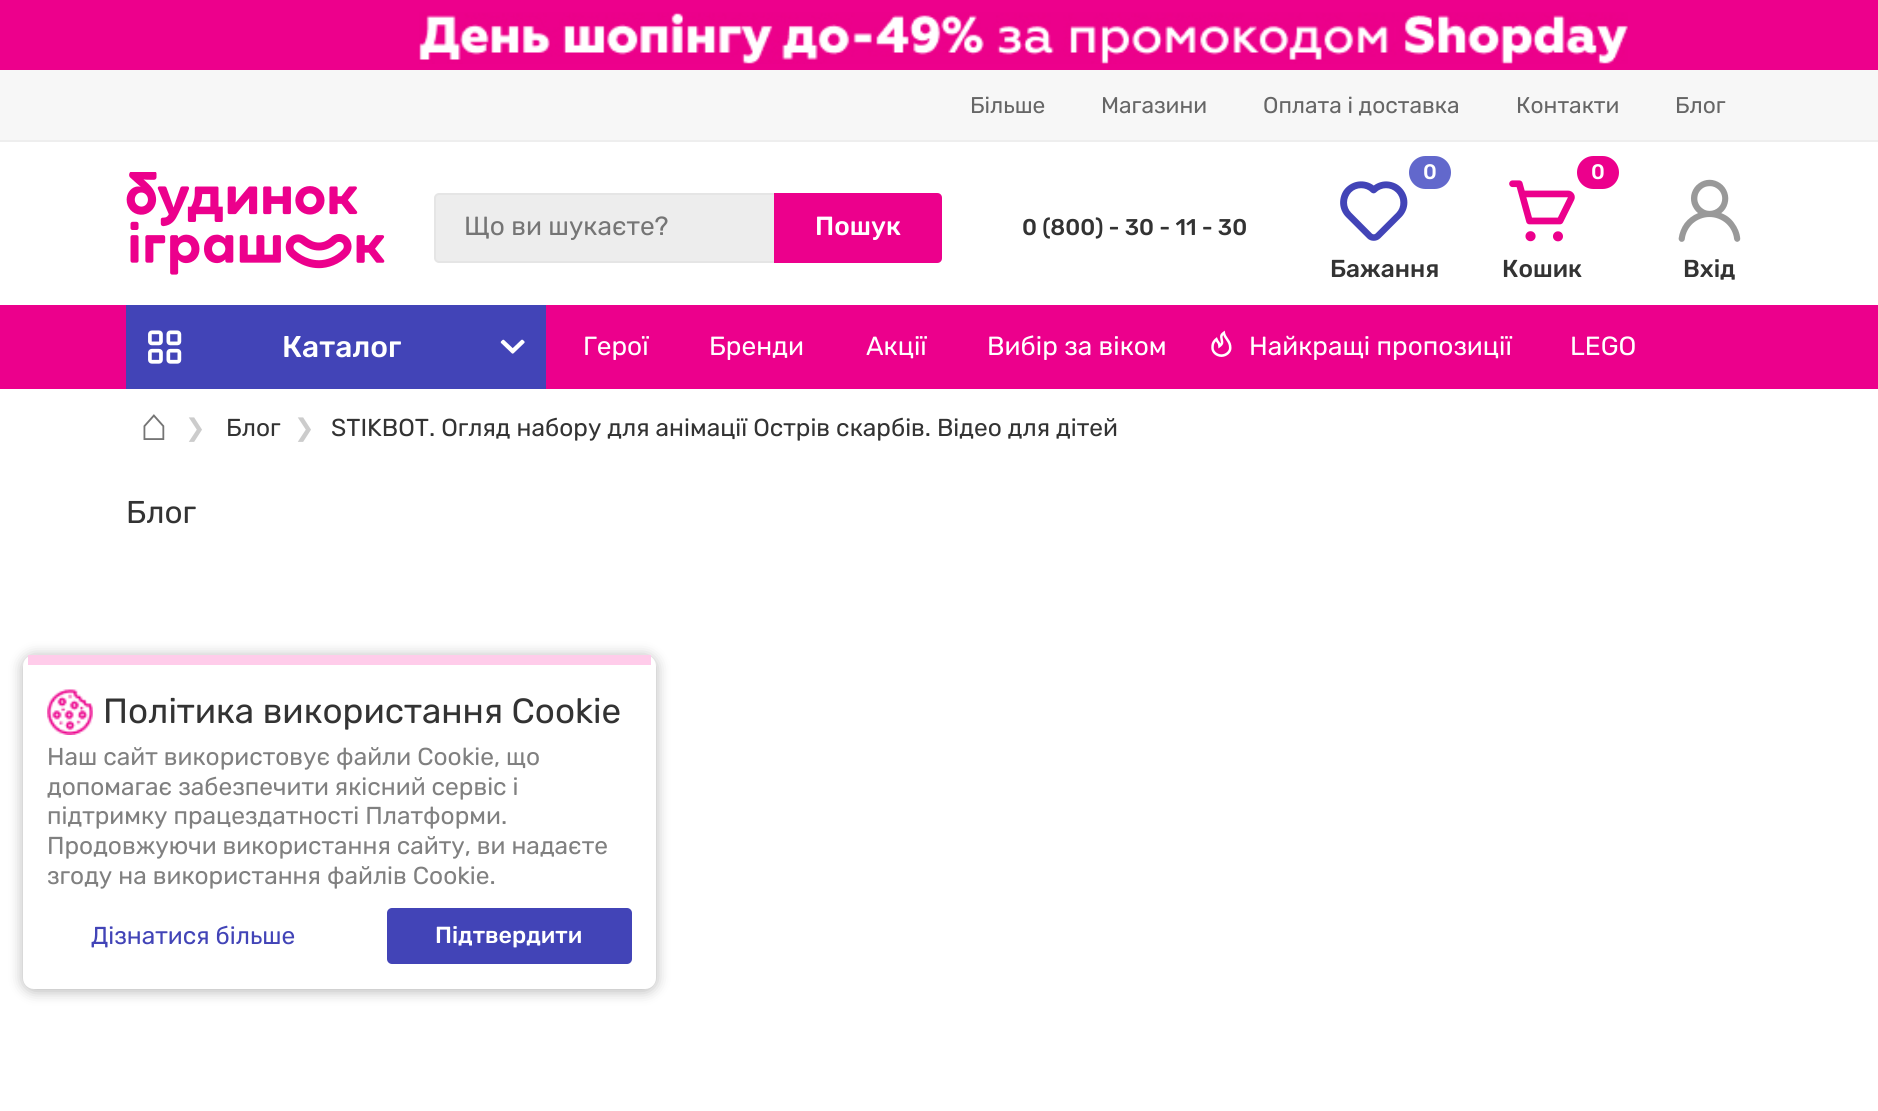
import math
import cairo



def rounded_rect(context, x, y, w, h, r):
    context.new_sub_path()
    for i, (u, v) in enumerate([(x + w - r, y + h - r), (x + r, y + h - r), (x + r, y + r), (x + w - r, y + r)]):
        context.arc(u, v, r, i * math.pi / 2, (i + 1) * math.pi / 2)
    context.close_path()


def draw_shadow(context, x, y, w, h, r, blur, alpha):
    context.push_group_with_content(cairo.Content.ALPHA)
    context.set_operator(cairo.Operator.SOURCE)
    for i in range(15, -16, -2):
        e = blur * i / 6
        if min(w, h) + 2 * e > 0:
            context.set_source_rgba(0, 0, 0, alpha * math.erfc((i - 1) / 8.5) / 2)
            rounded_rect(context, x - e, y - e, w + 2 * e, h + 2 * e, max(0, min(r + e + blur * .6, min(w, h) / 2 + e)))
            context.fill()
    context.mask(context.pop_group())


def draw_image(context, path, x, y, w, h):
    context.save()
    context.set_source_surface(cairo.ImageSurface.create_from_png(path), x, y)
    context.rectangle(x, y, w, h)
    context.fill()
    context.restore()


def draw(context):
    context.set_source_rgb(1, 1, 1)
    context.paint()
    context.set_source_rgb(237 / 255, 0, 140 / 255)
    context.rectangle(0, 0, 1878, 70)
    context.fill()
    draw_image(context, "images/1.png", 419, 12, 1209, 52)
    context.set_source_rgb(247 / 255, 247 / 255, 247 / 255)
    context.rectangle(0, 70, 1878, 70)
    context.fill()
    context.set_source_rgb(238 / 255, 238 / 255, 238 / 255)
    context.rectangle(0, 140, 1878, 2)
    context.fill()
    draw_image(context, "images/2.png", 126, 172, 259, 103)
    context.set_source_rgb(237 / 255, 237 / 255, 237 / 255)
    rounded_rect(context, 435, 194, 506, 68, 4)
    context.fill_preserve()
    context.set_source_rgb(229 / 255, 229 / 255, 229 / 255)
    context.stroke()
    context.set_source_rgb(236 / 255, 0, 140 / 255)
    context.new_path()
    context.move_to(774, 193)
    context.line_to(937, 193)
    context.curve_to(940, 193, 942, 195, 942, 198)
    context.line_to(942, 258)
    context.curve_to(942, 261, 940, 263, 937, 263)
    context.line_to(774, 263)
    context.close_path()
    context.fill()
    context.set_source_rgb(98 / 255, 104 / 255, 204 / 255)
    rounded_rect(context, 1409, 156, 42, 33, 16.5)
    context.fill()
    draw_image(context, "images/3.png", 1340, 181, 68, 60)
    context.set_source_rgb(236 / 255, 0, 140 / 255)
    rounded_rect(context, 1577, 156, 42, 33, 16.5)
    context.fill()
    draw_image(context, "images/4.png", 1509, 180, 66, 62)
    draw_image(context, "images/5.png", 1678, 179, 63, 63)
    context.rectangle(0, 305, 1878, 84)
    context.fill()
    context.set_source_rgb(66 / 255, 68 / 255, 183 / 255)
    context.rectangle(126, 305, 420, 84)
    context.fill()
    draw_image(context, "images/6.png", 148, 330, 34, 34)
    draw_image(context, "images/7.png", 500, 339, 25, 15)
    draw_image(context, "images/8.png", 1211, 330, 21, 27)
    context.set_source_rgb(0, 0, 0)
    draw_shadow(context, 23, 656, 633, 335, 11, 7, 0.3)
    context.set_source_rgb(1, 1, 1)
    rounded_rect(context, 23, 655, 633, 334, 11)
    context.fill()
    context.set_source_rgb(1, 204 / 255, 234 / 255)
    context.rectangle(28, 655, 623, 10)
    context.fill()
    draw_image(context, "images/9.png", 47, 689, 46, 46)
    context.set_source_rgb(66 / 255, 68 / 255, 183 / 255)
    rounded_rect(context, 387, 908, 245, 56, 5)
    context.fill()
    context.select_font_face("Rubik")
    context.set_font_size(22.75)
    context.set_source_rgb(102 / 255, 102 / 255, 102 / 255)
    context.move_to(970, 113)
    context.show_text("Більше")
    context.move_to(1101, 113)
    context.show_text("Магазини")
    context.move_to(1263, 113)
    context.show_text("Оплата і доставка")
    context.move_to(1516, 113)
    context.show_text("Контакти")
    context.move_to(1675, 113)
    context.show_text("Блог")
    context.set_font_size(26.25)
    context.set_source_rgb(117 / 255, 117 / 255, 117 / 255)
    context.move_to(464, 235)
    context.show_text("Що ви шукаєте?")
    context.select_font_face("Rubik Medium")
    context.set_source_rgb(1, 1, 1)
    context.move_to(815, 235)
    context.show_text("Пошук")
    context.set_font_size(22.75)
    context.set_source_rgb(51 / 255, 51 / 255, 51 / 255)
    context.move_to(1022, 235)
    context.show_text("0 (800) - 30 - 11 - 30")
    context.set_font_size(21)
    context.set_source_rgb(1, 1, 1)
    context.move_to(1423, 179)
    context.show_text("0")
    context.set_font_size(24.5)
    context.set_source_rgb(51 / 255, 51 / 255, 51 / 255)
    context.move_to(1330, 277)
    context.show_text("Бажання")
    context.set_font_size(21)
    context.set_source_rgb(1, 1, 1)
    context.move_to(1591, 179)
    context.show_text("0")
    context.set_font_size(24.5)
    context.set_source_rgb(51 / 255, 51 / 255, 51 / 255)
    context.move_to(1502, 277)
    context.show_text("Кошик")
    context.move_to(1683, 277)
    context.show_text("Вхід")
    context.set_font_size(30)
    context.set_source_rgb(1, 1, 1)
    context.move_to(282, 357)
    context.show_text("Каталог")
    context.select_font_face("Rubik")
    context.set_font_size(26.25)
    context.move_to(583, 355)
    context.show_text("Герої")
    context.move_to(709, 355)
    context.show_text("Бренди")
    context.move_to(866, 355)
    context.show_text("Акції")
    context.move_to(987, 355)
    context.show_text("Вибір за віком")
    context.move_to(1249, 355)
    context.show_text("Найкращі пропозиції")
    context.move_to(1570, 355)
    context.show_text("LEGO")
    context.select_font_face("Liberation Sans")
    context.set_font_size(46)
    context.set_source_rgb(117 / 255, 117 / 255, 117 / 255)
    context.move_to(140, 440)
    context.show_text("⌂")
    context.select_font_face("DejaVu Sans")
    context.set_font_size(24.5)
    context.set_source_rgb(204 / 255, 204 / 255, 204 / 255)
    context.move_to(185, 436)
    context.show_text("❯")
    context.select_font_face("Rubik")
    context.set_source_rgb(51 / 255, 51 / 255, 51 / 255)
    context.move_to(226, 436)
    context.show_text("Блог")
    context.select_font_face("DejaVu Sans")
    context.set_source_rgb(204 / 255, 204 / 255, 204 / 255)
    context.move_to(294, 436)
    context.show_text("❯")
    context.select_font_face("Rubik")
    context.set_source_rgb(51 / 255, 51 / 255, 51 / 255)
    context.move_to(331, 436)
    context.show_text("STIKBOT. Огляд набору для анімації Острів скарбів. Відео для дітей")
    context.set_font_size(31.5)
    context.move_to(126, 523)
    context.show_text("Блог")
    context.set_font_size(35)
    context.move_to(103, 723)
    context.show_text("Політика використання Cookie")
    context.set_font_size(24.5)
    context.set_source_rgb(128 / 255, 128 / 255, 128 / 255)
    context.move_to(47, 765)
    context.show_text("Наш сайт використовує файли Cookie, що")
    context.move_to(47, 795)
    context.show_text("допомагає забезпечити якісний сервіс і")
    context.move_to(47, 824)
    context.show_text("підтримку працездатності Платформи.")
    context.move_to(47, 854)
    context.show_text("Продовжуючи використання сайту, ви надаєте")
    context.move_to(47, 884)
    context.show_text("згоду на використання файлів Cookie.")
    context.set_source_rgb(66 / 255, 68 / 255, 183 / 255)
    context.move_to(91, 944)
    context.show_text("Дізнатися більше")
    context.select_font_face("Rubik Medium")
    context.set_font_size(23.25)
    context.set_source_rgb(1, 1, 1)
    context.move_to(435, 943)
    context.show_text("Підтвердити")


surface = cairo.ImageSurface(cairo.Format.RGB24, 1878, 1111)
context = cairo.Context(surface)
options = cairo.FontOptions()
options.set_hint_metrics(cairo.HintMetrics.OFF)
options.set_hint_style(cairo.HintStyle.NONE)
context.set_font_options(options)
context.set_miter_limit(4)
draw(context)
surface.write_to_png("out.png")
